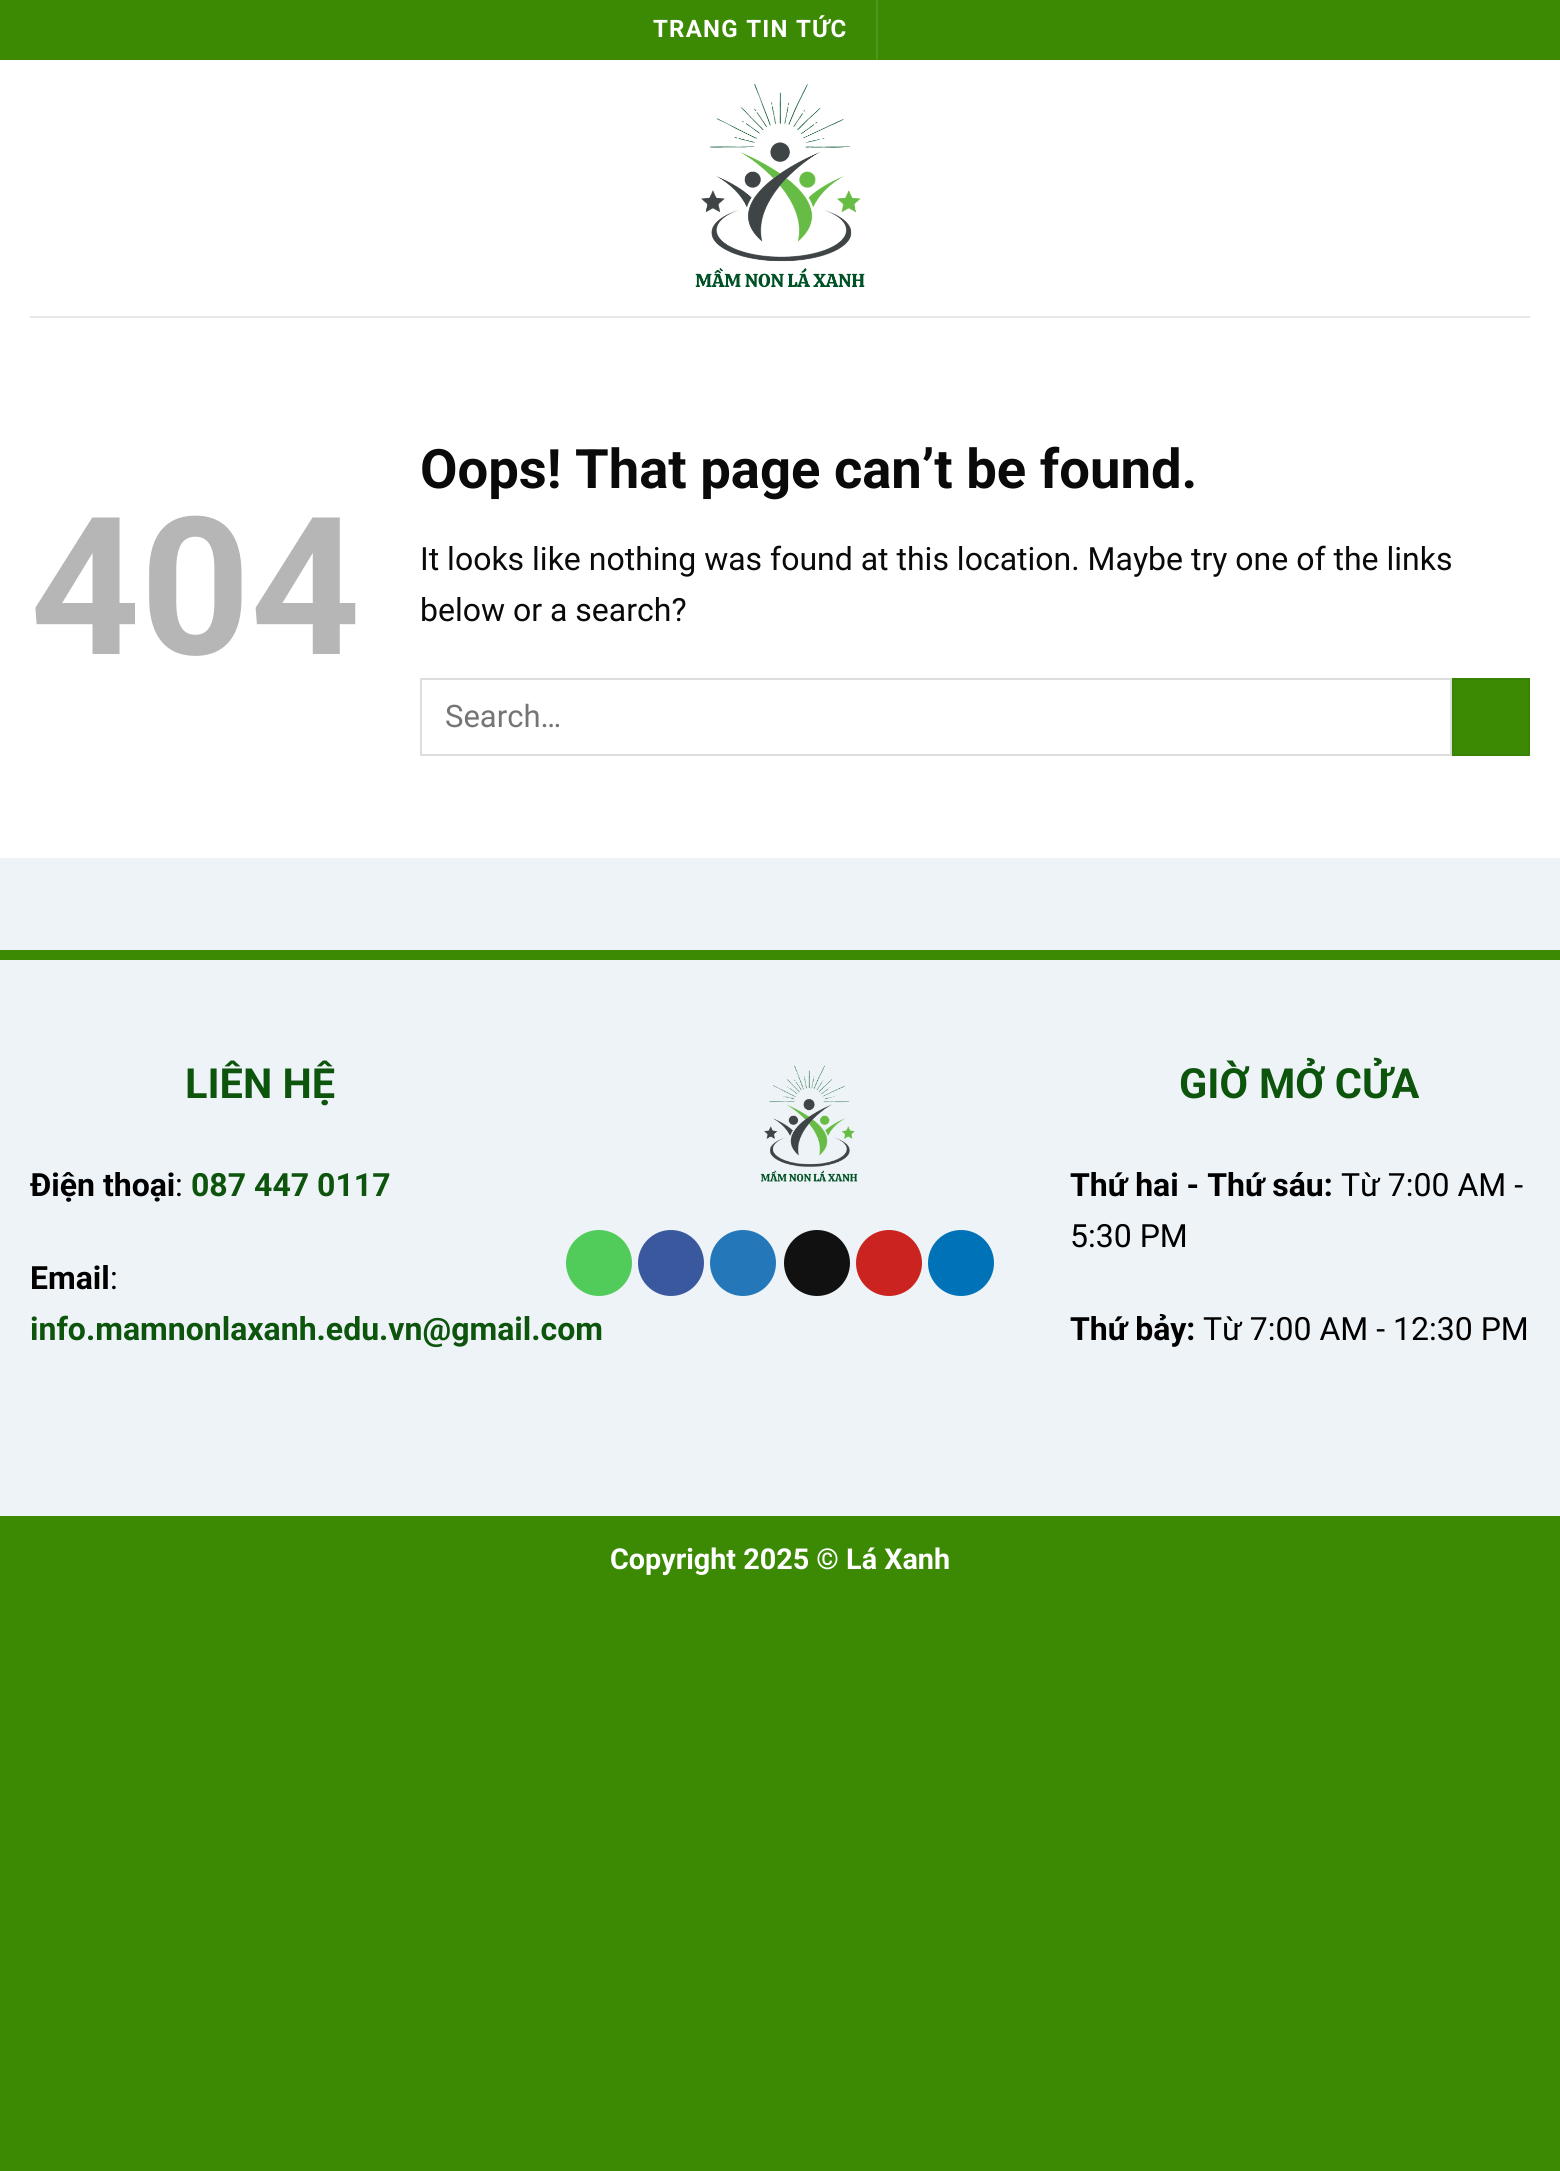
import math
import cairo



def draw_spaced(context, x, y, s, letter, word):
    context.move_to(x, y)
    for ch in s:
        context.show_text(ch)
        context.rel_move_to(letter + word * (ch == ' '), 0)


def draw_image(context, path, x, y, w, h):
    context.save()
    context.set_source_surface(cairo.ImageSurface.create_from_png(path), x, y)
    context.rectangle(x, y, w, h)
    context.fill()
    context.restore()


def draw(context):
    context.set_source_rgb(60 / 255, 138 / 255, 4 / 255)
    context.paint()
    context.set_source_rgb(1, 1, 1)
    context.rectangle(0, 60, 1560, 798)
    context.fill()
    context.set_source_rgb(80 / 255, 150 / 255, 29 / 255)
    context.rectangle(876, 0, 2, 60)
    context.fill()
    draw_image(context, "images/1.png", 695, 83, 170, 205)
    context.set_source_rgb(231 / 255, 231 / 255, 231 / 255)
    context.rectangle(30, 316, 1500, 2)
    context.fill()
    context.rectangle(421, 679, 1030, 76)
    context.set_source_rgb(221 / 255, 221 / 255, 221 / 255)
    context.stroke()
    context.set_source_rgb(60 / 255, 138 / 255, 4 / 255)
    context.rectangle(1453, 679, 76, 76)
    context.fill_preserve()
    context.set_source_rgb(57 / 255, 131 / 255, 4 / 255)
    context.stroke()
    context.set_source_rgb(238 / 255, 243 / 255, 247 / 255)
    context.rectangle(0, 858, 1560, 658)
    context.fill()
    context.set_source_rgb(60 / 255, 138 / 255, 4 / 255)
    context.rectangle(0, 950, 1560, 10)
    context.fill()
    draw_image(context, "images/2.png", 760, 1065, 98, 117)
    context.set_source_rgb(81 / 255, 203 / 255, 90 / 255)
    context.arc(599, 1263, 32, 0, 2 * math.pi)
    context.fill_preserve()
    context.stroke()
    context.set_source_rgb(58 / 255, 88 / 255, 157 / 255)
    context.arc(671, 1263, 32, 0, 2 * math.pi)
    context.fill_preserve()
    context.stroke()
    context.set_source_rgb(36 / 255, 120 / 255, 186 / 255)
    context.arc(743, 1263, 32, 0, 2 * math.pi)
    context.fill_preserve()
    context.stroke()
    context.set_source_rgb(17 / 255, 17 / 255, 17 / 255)
    context.arc(817, 1263, 32, 0, 2 * math.pi)
    context.fill_preserve()
    context.stroke()
    context.set_source_rgb(203 / 255, 35 / 255, 32 / 255)
    context.arc(889, 1263, 32, 0, 2 * math.pi)
    context.fill_preserve()
    context.stroke()
    context.set_source_rgb(0, 114 / 255, 183 / 255)
    context.arc(961, 1263, 32, 0, 2 * math.pi)
    context.fill_preserve()
    context.stroke()
    context.select_font_face("Roboto", cairo.FontSlant.NORMAL, cairo.FontWeight.BOLD)
    context.set_font_size(24)
    context.set_source_rgb(1, 1, 1)
    draw_spaced(context, 653, 37, "TRANG TIN TỨC", 1.25, 0)
    context.set_font_size(192)
    context.set_source_rgb(182 / 255, 182 / 255, 182 / 255)
    context.move_to(30, 654)
    context.show_text("404")
    context.set_font_size(54.4)
    context.set_source_rgb(10 / 255, 10 / 255, 10 / 255)
    context.move_to(420, 488)
    context.show_text("Oops! That page can’t be found.")
    context.select_font_face("Roboto")
    context.set_font_size(32)
    context.move_to(420, 570)
    context.show_text("It looks like nothing was found at this location. Maybe try one of the links")
    context.move_to(420, 621)
    context.show_text("below or a search?")
    context.set_font_size(31)
    context.set_source_rgb(117 / 255, 117 / 255, 117 / 255)
    context.move_to(445, 727)
    context.show_text("Search…")
    context.select_font_face("Roboto", cairo.FontSlant.NORMAL, cairo.FontWeight.BOLD)
    context.set_font_size(41.5)
    context.set_source_rgb(13 / 255, 84 / 255, 13 / 255)
    context.move_to(185, 1098)
    context.show_text("LIÊN HỆ")
    context.set_font_size(32)
    context.set_source_rgb(0, 0, 0)
    context.move_to(30, 1196)
    context.show_text("Điện thoại")
    context.select_font_face("Roboto")
    context.move_to(175, 1196)
    context.show_text(":")
    context.select_font_face("Roboto", cairo.FontSlant.NORMAL, cairo.FontWeight.BOLD)
    context.set_source_rgb(13 / 255, 84 / 255, 13 / 255)
    context.move_to(191, 1196)
    context.show_text("087 447 0117")
    context.set_source_rgb(0, 0, 0)
    context.move_to(30, 1289)
    context.show_text("Email")
    context.select_font_face("Roboto")
    context.move_to(110, 1289)
    context.show_text(":")
    context.select_font_face("Roboto", cairo.FontSlant.NORMAL, cairo.FontWeight.BOLD)
    context.set_source_rgb(13 / 255, 84 / 255, 13 / 255)
    context.move_to(30, 1340)
    context.show_text("info.mamnonlaxanh.edu.vn@gmail.com")
    context.set_font_size(41.5)
    context.move_to(1179, 1098)
    context.show_text("GIỜ MỞ CỬA")
    context.set_font_size(32)
    context.set_source_rgb(0, 0, 0)
    context.move_to(1070, 1196)
    context.show_text("Thứ hai - Thứ sáu:")
    context.select_font_face("Roboto")
    context.move_to(1341, 1196)
    context.show_text("Từ 7:00 AM -")
    context.move_to(1070, 1247)
    context.show_text("5:30 PM")
    context.select_font_face("Roboto", cairo.FontSlant.NORMAL, cairo.FontWeight.BOLD)
    context.move_to(1070, 1340)
    context.show_text("Thứ bảy:")
    context.select_font_face("Roboto")
    context.move_to(1203, 1340)
    context.show_text("Từ 7:00 AM - 12:30 PM")
    context.select_font_face("Roboto", cairo.FontSlant.NORMAL, cairo.FontWeight.BOLD)
    context.set_font_size(28.75)
    context.set_source_rgb(1, 1, 1)
    context.move_to(610, 1569)
    context.show_text("Copyright 2025 © Lá Xanh")


surface = cairo.ImageSurface(cairo.Format.RGB24, 1560, 2171)
context = cairo.Context(surface)
options = cairo.FontOptions()
options.set_hint_metrics(cairo.HintMetrics.OFF)
options.set_hint_style(cairo.HintStyle.NONE)
context.set_font_options(options)
context.set_miter_limit(4)
draw(context)
surface.write_to_png("out.png")
